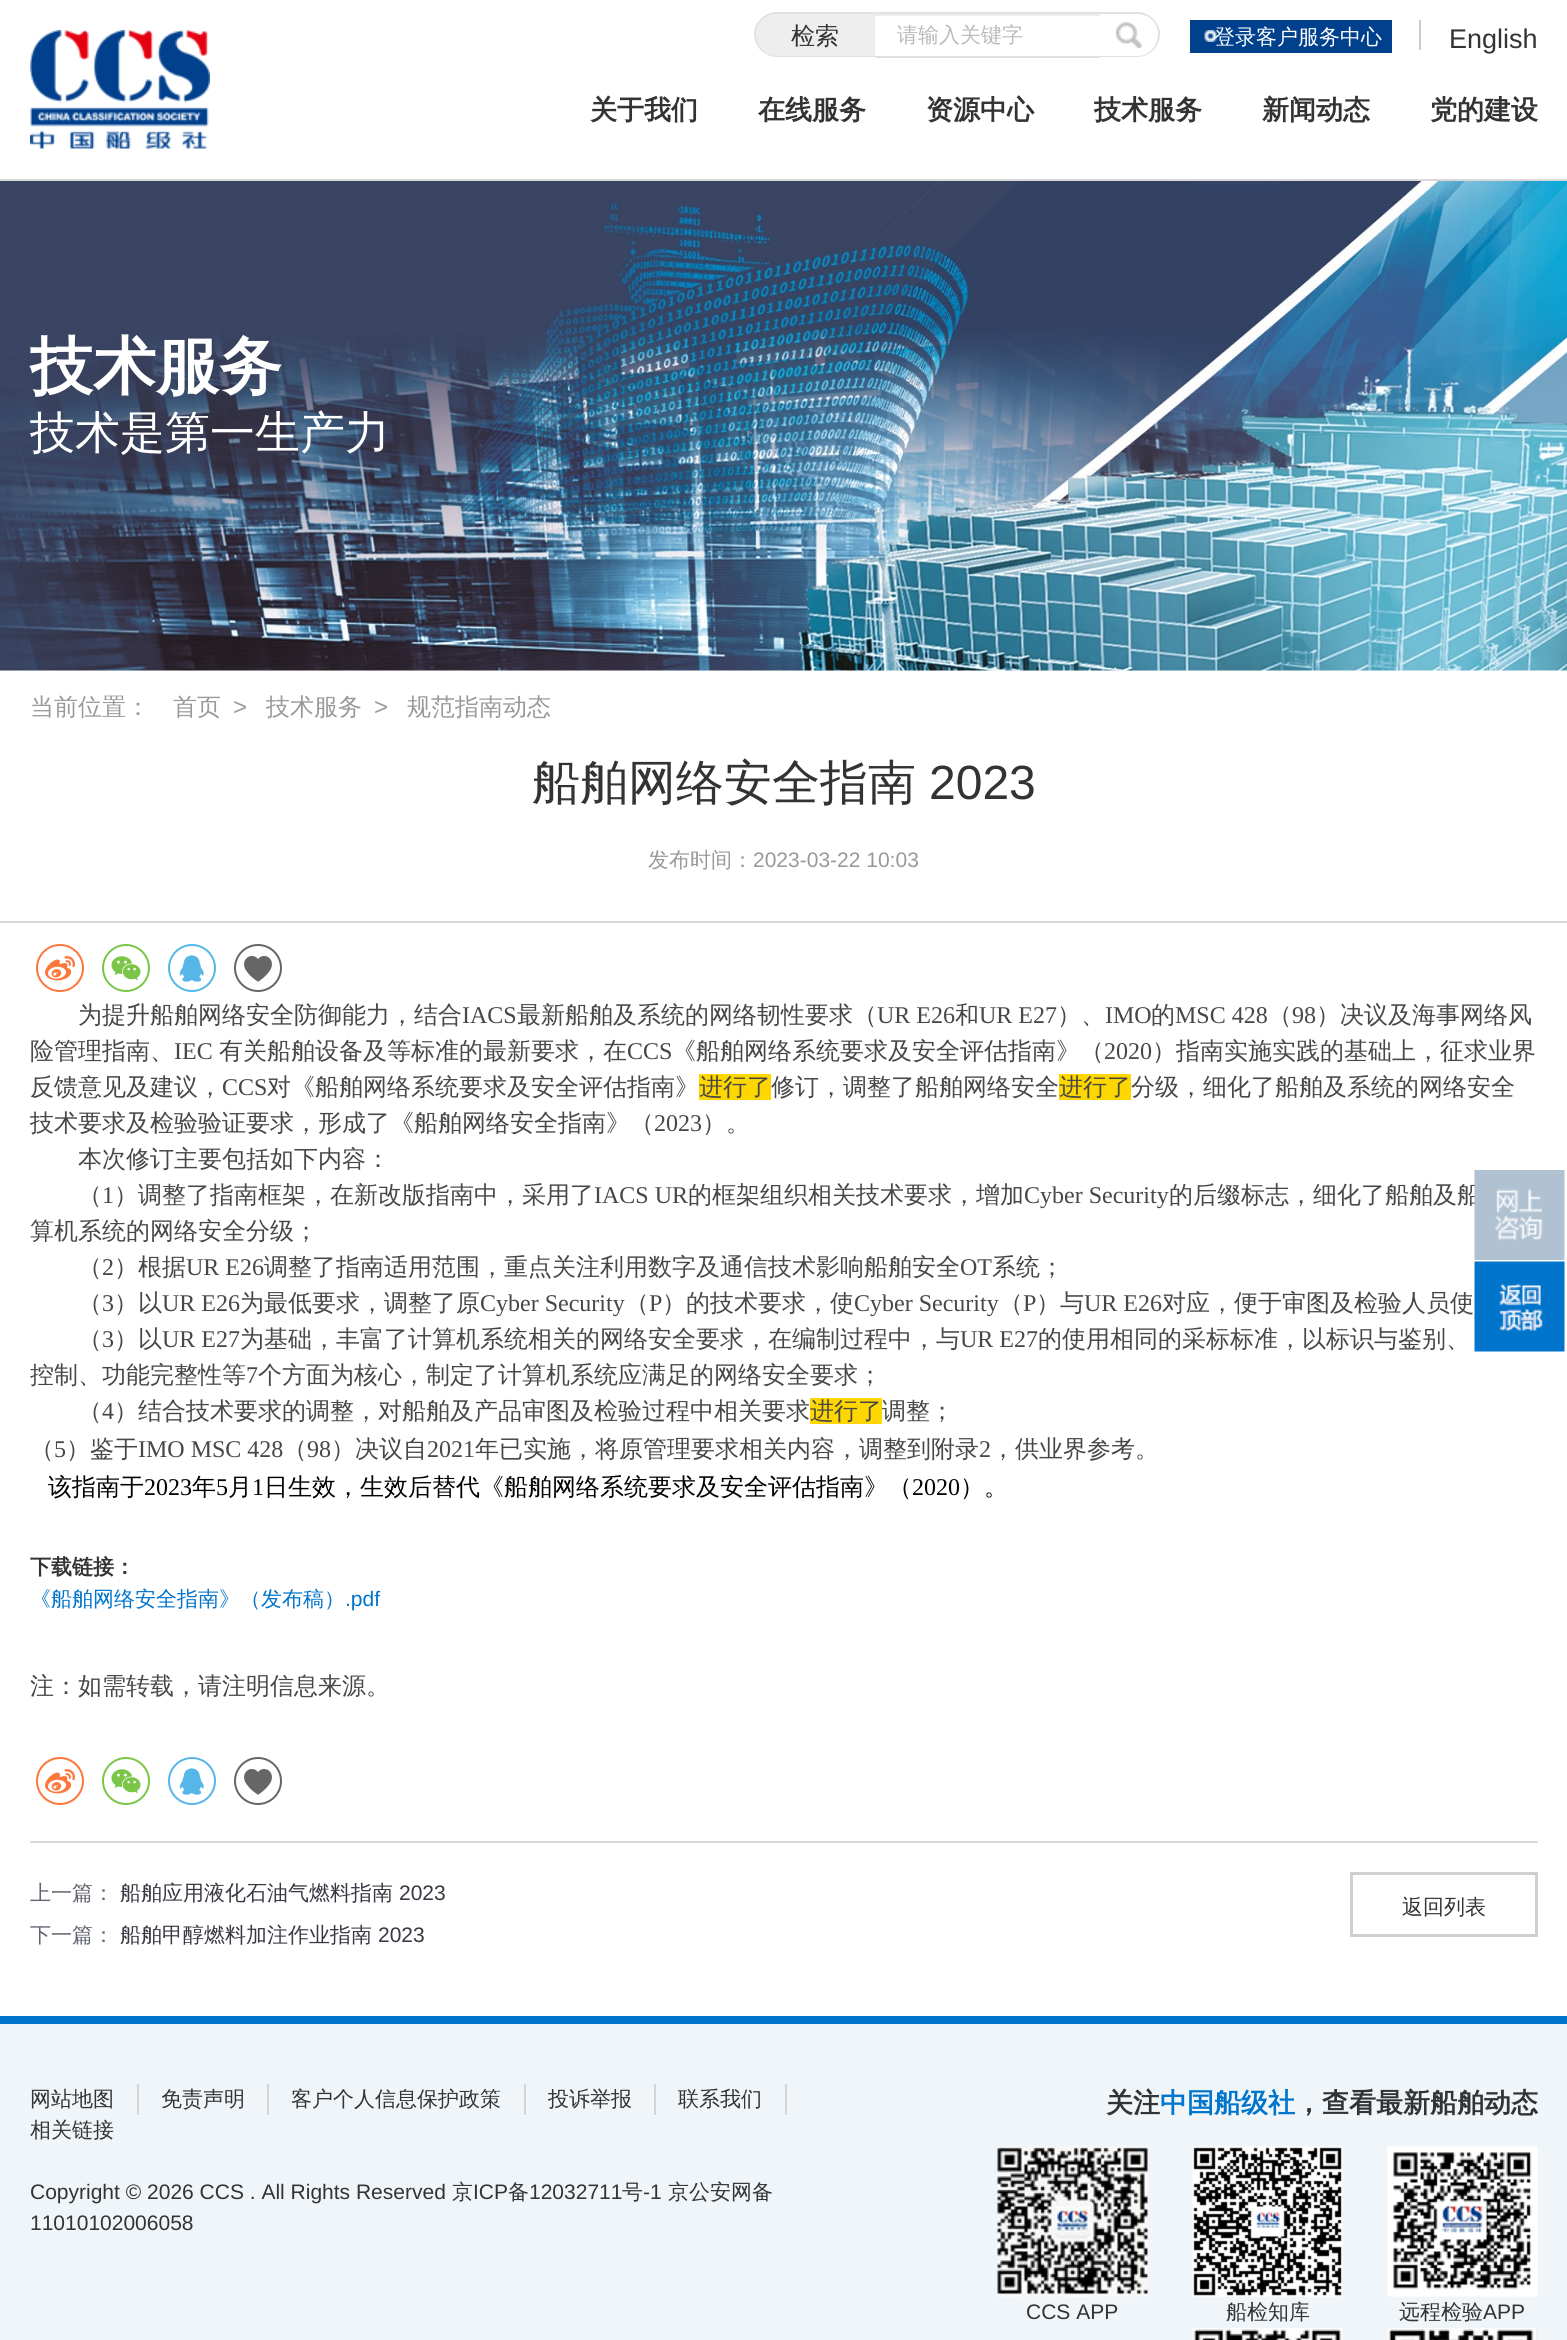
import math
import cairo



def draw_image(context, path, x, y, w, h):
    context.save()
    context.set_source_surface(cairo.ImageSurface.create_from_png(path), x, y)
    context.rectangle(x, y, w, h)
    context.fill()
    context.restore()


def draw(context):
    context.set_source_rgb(1, 1, 1)
    context.paint()
    context.set_source_rgb(217 / 255, 217 / 255, 217 / 255)
    context.rectangle(0, 179, 1567, 2)
    context.fill()
    draw_image(context, "images/1.png", 30, 30, 180, 119)
    context.set_source_rgb(238 / 255, 238 / 255, 238 / 255)
    context.new_path()
    context.move_to(777.5, 12)
    context.line_to(875, 12)
    context.line_to(875, 57)
    context.line_to(777.5, 57)
    context.curve_to(765, 57, 755, 47, 755, 34.5)
    context.curve_to(755, 22, 765, 12, 777.5, 12)
    context.close_path()
    context.fill()
    context.set_source_rgb(225 / 255, 225 / 255, 225 / 255)
    context.set_fill_rule(cairo.FillRule.EVEN_ODD)
    context.new_path()
    context.move_to(777, 12)
    context.line_to(874, 12)
    context.line_to(874, 57)
    context.line_to(777, 57)
    context.curve_to(765, 57, 754, 47, 754, 34)
    context.curve_to(754, 22, 765, 12, 777, 12)
    context.close_path()
    context.move_to(777, 14)
    context.line_to(874, 14)
    context.line_to(874, 56)
    context.line_to(777, 56)
    context.curve_to(765, 56, 756, 46, 756, 34)
    context.curve_to(756, 23, 765, 14, 777, 14)
    context.close_path()
    context.fill()
    context.set_source_rgb(236 / 255, 236 / 255, 236 / 255)
    context.rectangle(875, 14, 225, 2)
    context.fill()
    context.set_source_rgb(225 / 255, 225 / 255, 225 / 255)
    context.rectangle(875, 12, 225, 2)
    context.fill()
    context.rectangle(875, 56, 225, 2)
    context.fill()
    draw_image(context, "images/2.png", 1116, 22, 26, 26)
    context.new_path()
    context.move_to(1100, 12)
    context.line_to(1137, 12)
    context.curve_to(1149, 12, 1160, 22, 1160, 34)
    context.curve_to(1160, 47, 1149, 57, 1137, 57)
    context.line_to(1100, 57)
    context.close_path()
    context.move_to(1100, 14)
    context.line_to(1137, 14)
    context.curve_to(1149, 14, 1158, 23, 1158, 34)
    context.curve_to(1158, 46, 1149, 56, 1137, 56)
    context.line_to(1100, 56)
    context.close_path()
    context.fill()
    context.set_source_rgb(0, 64 / 255, 140 / 255)
    context.rectangle(1190, 20, 202, 33)
    context.fill()
    draw_image(context, "images/3.png", 1204, 30, 13, 12)
    context.set_source_rgb(202 / 255, 202 / 255, 202 / 255)
    context.rectangle(1419, 20, 2, 30)
    context.fill()
    draw_image(context, "images/4.png", 0, 181, 1567, 490)
    context.set_source_rgb(217 / 255, 217 / 255, 217 / 255)
    context.rectangle(0, 921, 1567, 2)
    context.fill()
    context.arc(60, 968, 23, 0, 2 * math.pi)
    context.set_source_rgb(1, 118 / 255, 59 / 255)
    context.stroke()
    draw_image(context, "images/5.png", 45, 956, 30, 25)
    context.arc(126, 968, 23, 0, 2 * math.pi)
    context.set_source_rgb(123 / 255, 197 / 255, 73 / 255)
    context.stroke()
    draw_image(context, "images/6.png", 111, 956, 30, 25)
    context.arc(192, 968, 23, 0, 2 * math.pi)
    context.set_source_rgb(86 / 255, 182 / 255, 231 / 255)
    context.stroke()
    draw_image(context, "images/7.png", 179, 955, 25, 27)
    context.arc(258, 968, 23, 0, 2 * math.pi)
    context.set_source_rgb(102 / 255, 102 / 255, 102 / 255)
    context.stroke()
    draw_image(context, "images/8.png", 244, 956, 28, 26)
    context.set_source_rgb(1, 215 / 255, 0)
    context.rectangle(699, 1074, 72, 26)
    context.fill()
    context.rectangle(1059, 1074, 72, 26)
    context.fill()
    context.rectangle(810, 1398, 72, 26)
    context.fill()
    context.set_source_rgb(217 / 255, 217 / 255, 217 / 255)
    context.rectangle(30, 1841, 1508, 2)
    context.fill()
    context.arc(60, 1781, 23, 0, 2 * math.pi)
    context.set_source_rgb(1, 118 / 255, 59 / 255)
    context.stroke()
    draw_image(context, "images/5.png", 45, 1769, 30, 25)
    context.arc(126, 1781, 23, 0, 2 * math.pi)
    context.set_source_rgb(123 / 255, 197 / 255, 73 / 255)
    context.stroke()
    draw_image(context, "images/6.png", 111, 1769, 30, 25)
    context.arc(192, 1781, 23, 0, 2 * math.pi)
    context.set_source_rgb(86 / 255, 182 / 255, 231 / 255)
    context.stroke()
    draw_image(context, "images/7.png", 179, 1768, 25, 27)
    context.arc(258, 1781, 23, 0, 2 * math.pi)
    context.set_source_rgb(102 / 255, 102 / 255, 102 / 255)
    context.stroke()
    draw_image(context, "images/8.png", 244, 1769, 28, 26)
    context.rectangle(1351.5, 1873.5, 185, 62)
    context.set_source_rgb(208 / 255, 208 / 255, 208 / 255)
    context.set_line_width(3)
    context.stroke()
    context.set_source_rgb(240 / 255, 245 / 255, 249 / 255)
    context.rectangle(0, 2024, 1567, 316)
    context.fill()
    context.set_source_rgb(0, 117 / 255, 203 / 255)
    context.rectangle(0, 2016, 1567, 8)
    context.fill()
    draw_image(context, "images/10.png", 1474, 1261, 91, 91)
    context.set_source_rgb(212 / 255, 212 / 255, 212 / 255)
    context.rectangle(137, 2084, 2, 31)
    context.fill()
    context.rectangle(267, 2084, 2, 31)
    context.fill()
    context.rectangle(524, 2084, 2, 31)
    context.fill()
    context.rectangle(654, 2084, 2, 31)
    context.fill()
    context.rectangle(785, 2084, 2, 31)
    context.fill()
    draw_image(context, "images/11.png", 997, 2146, 151, 151)
    draw_image(context, "images/12.png", 1192, 2146, 151, 151)
    draw_image(context, "images/13.png", 1387, 2146, 151, 151)
    draw_image(context, "images/14.png", 1192, 2328, 151, 12)
    draw_image(context, "images/15.png", 1387, 2328, 151, 12)
    context.select_font_face("WenQuanYi Zen Hei Medium")
    context.set_font_size(24)
    context.set_source_rgb(51 / 255, 51 / 255, 51 / 255)
    context.move_to(791, 44)
    context.show_text("检索")
    context.set_font_size(21)
    context.set_source_rgb(186 / 255, 186 / 255, 186 / 255)
    context.move_to(897, 42)
    context.show_text("请输入关键字")
    context.set_source_rgb(1, 1, 1)
    context.move_to(1214, 44)
    context.show_text("登录客户服务中心")
    context.select_font_face("Liberation Sans")
    context.set_font_size(27)
    context.set_source_rgb(51 / 255, 51 / 255, 51 / 255)
    context.move_to(1449, 48)
    context.show_text("English")
    context.select_font_face("WenQuanYi Zen Hei", cairo.FontSlant.NORMAL, cairo.FontWeight.BOLD)
    context.move_to(590, 119)
    context.show_text("关于我们")
    context.move_to(758, 119)
    context.show_text("在线服务")
    context.move_to(926, 119)
    context.show_text("资源中心")
    context.move_to(1094, 119)
    context.show_text("技术服务")
    context.move_to(1262, 119)
    context.show_text("新闻动态")
    context.move_to(1430, 119)
    context.show_text("党的建设")
    context.set_font_size(63)
    context.set_source_rgb(1, 1, 1)
    context.move_to(30, 388)
    context.show_text("技术服务")
    context.select_font_face("WenQuanYi Zen Hei Medium")
    context.set_font_size(45)
    context.move_to(30, 448)
    context.show_text("技术是第一生产力")
    context.set_font_size(24)
    context.set_source_rgb(153 / 255, 153 / 255, 153 / 255)
    context.move_to(30, 715)
    context.show_text("当前位置：")
    context.move_to(173, 715)
    context.show_text("首页")
    context.select_font_face("Liberation Sans")
    context.move_to(233, 715)
    context.show_text(">")
    context.select_font_face("WenQuanYi Zen Hei Medium")
    context.move_to(266, 715)
    context.show_text("技术服务")
    context.select_font_face("Liberation Sans")
    context.move_to(374, 715)
    context.show_text(">")
    context.select_font_face("WenQuanYi Zen Hei Medium")
    context.move_to(407, 715)
    context.show_text("规范指南动态")
    context.set_font_size(48)
    context.set_source_rgb(51 / 255, 51 / 255, 51 / 255)
    context.move_to(532, 799)
    context.show_text("船舶网络安全指南")
    context.select_font_face("Liberation Sans")
    context.move_to(929, 799)
    context.show_text("2023")
    context.select_font_face("WenQuanYi Zen Hei Medium")
    context.set_font_size(21)
    context.set_source_rgb(153 / 255, 153 / 255, 153 / 255)
    context.move_to(648, 867)
    context.show_text("发布时间：")
    context.select_font_face("Liberation Sans")
    context.move_to(753, 867)
    context.show_text("2023-03-22 10:03")
    context.select_font_face("WenQuanYi Zen Hei Medium")
    context.set_font_size(24)
    context.set_source_rgb(71 / 255, 71 / 255, 71 / 255)
    context.move_to(78, 1023)
    context.show_text("为提升船舶网络安全防御能力，结合")
    context.select_font_face("Liberation Serif")
    context.move_to(462, 1023)
    context.show_text("IACS")
    context.select_font_face("WenQuanYi Zen Hei Medium")
    context.move_to(517, 1023)
    context.show_text("最新船舶及系统的网络韧性要求（")
    context.select_font_face("Liberation Serif")
    context.move_to(877, 1023)
    context.show_text("UR E26")
    context.select_font_face("WenQuanYi Zen Hei Medium")
    context.move_to(955, 1023)
    context.show_text("和")
    context.select_font_face("Liberation Serif")
    context.move_to(979, 1023)
    context.show_text("UR E27")
    context.select_font_face("WenQuanYi Zen Hei Medium")
    context.move_to(1057, 1023)
    context.show_text("）、")
    context.select_font_face("Liberation Serif")
    context.move_to(1105, 1023)
    context.show_text("IMO")
    context.select_font_face("WenQuanYi Zen Hei Medium")
    context.move_to(1151, 1023)
    context.show_text("的")
    context.select_font_face("Liberation Serif")
    context.move_to(1175, 1023)
    context.show_text("MSC 428")
    context.select_font_face("WenQuanYi Zen Hei Medium")
    context.move_to(1268, 1023)
    context.show_text("（")
    context.select_font_face("Liberation Serif")
    context.move_to(1292, 1023)
    context.show_text("98")
    context.select_font_face("WenQuanYi Zen Hei Medium")
    context.move_to(1316, 1023)
    context.show_text("）决议及海事网络风")
    context.move_to(30, 1059)
    context.show_text("险管理指南、")
    context.select_font_face("Liberation Serif")
    context.move_to(174, 1059)
    context.show_text("IEC")
    context.select_font_face("WenQuanYi Zen Hei Medium")
    context.move_to(219, 1059)
    context.show_text("有关船舶设备及等标准的最新要求，在")
    context.select_font_face("Liberation Serif")
    context.move_to(627, 1059)
    context.show_text("CCS")
    context.select_font_face("WenQuanYi Zen Hei Medium")
    context.move_to(672, 1059)
    context.show_text("《船舶网络系统要求及安全评估指南》（")
    context.select_font_face("Liberation Serif")
    context.move_to(1104, 1059)
    context.show_text("2020")
    context.select_font_face("WenQuanYi Zen Hei Medium")
    context.move_to(1152, 1059)
    context.show_text("）指南实施实践的基础上，征求业界")
    context.move_to(30, 1095)
    context.show_text("反馈意见及建议，")
    context.select_font_face("Liberation Serif")
    context.move_to(222, 1095)
    context.show_text("CCS")
    context.select_font_face("WenQuanYi Zen Hei Medium")
    context.move_to(267, 1095)
    context.show_text("对《船舶网络系统要求及安全评估指南》")
    context.move_to(699, 1095)
    context.show_text("进行了修订，调整了船舶网络安全")
    context.move_to(1059, 1095)
    context.show_text("进行了分级，细化了船舶及系统的网络安全")
    context.move_to(30, 1131)
    context.show_text("技术要求及检验验证要求，形成了《船舶网络安全指南》（")
    context.select_font_face("Liberation Serif")
    context.move_to(654, 1131)
    context.show_text("2023")
    context.select_font_face("WenQuanYi Zen Hei Medium")
    context.move_to(702, 1131)
    context.show_text("）。")
    context.move_to(78, 1167)
    context.show_text("本次修订主要包括如下内容：")
    context.move_to(78, 1203)
    context.show_text("（")
    context.select_font_face("Liberation Serif")
    context.move_to(102, 1203)
    context.show_text("1")
    context.select_font_face("WenQuanYi Zen Hei Medium")
    context.move_to(114, 1203)
    context.show_text("）调整了指南框架，在新改版指南中，采用了")
    context.select_font_face("Liberation Serif")
    context.move_to(594, 1203)
    context.show_text("IACS UR")
    context.select_font_face("WenQuanYi Zen Hei Medium")
    context.move_to(688, 1203)
    context.show_text("的框架组织相关技术要求，增加")
    context.select_font_face("Liberation Serif")
    context.move_to(1024, 1203)
    context.show_text("Cyber Security")
    context.select_font_face("WenQuanYi Zen Hei Medium")
    context.move_to(1169, 1203)
    context.show_text("的后缀标志，细化了船舶及船")
    context.move_to(30, 1239)
    context.show_text("算机系统的网络安全分级；")
    context.move_to(78, 1275)
    context.show_text("（")
    context.select_font_face("Liberation Serif")
    context.move_to(102, 1275)
    context.show_text("2")
    context.select_font_face("WenQuanYi Zen Hei Medium")
    context.move_to(114, 1275)
    context.show_text("）根据")
    context.select_font_face("Liberation Serif")
    context.move_to(186, 1275)
    context.show_text("UR E26")
    context.select_font_face("WenQuanYi Zen Hei Medium")
    context.move_to(264, 1275)
    context.show_text("调整了指南适用范围，重点关注利用数字及通信技术影响船舶安全")
    context.select_font_face("Liberation Serif")
    context.move_to(960, 1275)
    context.show_text("OT")
    context.select_font_face("WenQuanYi Zen Hei Medium")
    context.move_to(992, 1275)
    context.show_text("系统；")
    context.move_to(78, 1311)
    context.show_text("（")
    context.select_font_face("Liberation Serif")
    context.move_to(102, 1311)
    context.show_text("3")
    context.select_font_face("WenQuanYi Zen Hei Medium")
    context.move_to(114, 1311)
    context.show_text("）以")
    context.select_font_face("Liberation Serif")
    context.move_to(162, 1311)
    context.show_text("UR E26")
    context.select_font_face("WenQuanYi Zen Hei Medium")
    context.move_to(240, 1311)
    context.show_text("为最低要求，调整了原")
    context.select_font_face("Liberation Serif")
    context.move_to(480, 1311)
    context.show_text("Cyber Security")
    context.select_font_face("WenQuanYi Zen Hei Medium")
    context.move_to(625, 1311)
    context.show_text("（")
    context.select_font_face("Liberation Serif")
    context.move_to(649, 1311)
    context.show_text("P")
    context.select_font_face("WenQuanYi Zen Hei Medium")
    context.move_to(662, 1311)
    context.show_text("）的技术要求，使")
    context.select_font_face("Liberation Serif")
    context.move_to(854, 1311)
    context.show_text("Cyber Security")
    context.select_font_face("WenQuanYi Zen Hei Medium")
    context.move_to(999, 1311)
    context.show_text("（")
    context.select_font_face("Liberation Serif")
    context.move_to(1023, 1311)
    context.show_text("P")
    context.select_font_face("WenQuanYi Zen Hei Medium")
    context.move_to(1036, 1311)
    context.show_text("）与")
    context.select_font_face("Liberation Serif")
    context.move_to(1084, 1311)
    context.show_text("UR E26")
    context.select_font_face("WenQuanYi Zen Hei Medium")
    context.move_to(1162, 1311)
    context.show_text("对应，便于审图及检验人员使")
    context.move_to(78, 1347)
    context.show_text("（")
    context.select_font_face("Liberation Serif")
    context.move_to(102, 1347)
    context.show_text("3")
    context.select_font_face("WenQuanYi Zen Hei Medium")
    context.move_to(114, 1347)
    context.show_text("）以")
    context.select_font_face("Liberation Serif")
    context.move_to(162, 1347)
    context.show_text("UR E27")
    context.select_font_face("WenQuanYi Zen Hei Medium")
    context.move_to(240, 1347)
    context.show_text("为基础，丰富了计算机系统相关的网络安全要求，在编制过程中，与")
    context.select_font_face("Liberation Serif")
    context.move_to(960, 1347)
    context.show_text("UR E27")
    context.select_font_face("WenQuanYi Zen Hei Medium")
    context.move_to(1038, 1347)
    context.show_text("的使用相同的采标标准，以标识与鉴别、")
    context.move_to(30, 1383)
    context.show_text("控制、功能完整性等")
    context.select_font_face("Liberation Serif")
    context.move_to(246, 1383)
    context.show_text("7")
    context.select_font_face("WenQuanYi Zen Hei Medium")
    context.move_to(258, 1383)
    context.show_text("个方面为核心，制定了计算机系统应满足的网络安全要求；")
    context.move_to(78, 1419)
    context.show_text("（")
    context.select_font_face("Liberation Serif")
    context.move_to(102, 1419)
    context.show_text("4")
    context.select_font_face("WenQuanYi Zen Hei Medium")
    context.move_to(114, 1419)
    context.show_text("）结合技术要求的调整，对船舶及产品审图及检验过程中相关要求")
    context.move_to(810, 1419)
    context.show_text("进行了调整；")
    context.move_to(30, 1457)
    context.show_text("（")
    context.select_font_face("Liberation Serif")
    context.move_to(54, 1457)
    context.show_text("5")
    context.select_font_face("WenQuanYi Zen Hei Medium")
    context.move_to(66, 1457)
    context.show_text("）鉴于")
    context.select_font_face("Liberation Serif")
    context.move_to(138, 1457)
    context.show_text("IMO MSC 428")
    context.select_font_face("WenQuanYi Zen Hei Medium")
    context.move_to(283, 1457)
    context.show_text("（")
    context.select_font_face("Liberation Serif")
    context.move_to(307, 1457)
    context.show_text("98")
    context.select_font_face("WenQuanYi Zen Hei Medium")
    context.move_to(331, 1457)
    context.show_text("）决议自")
    context.select_font_face("Liberation Serif")
    context.move_to(427, 1457)
    context.show_text("2021")
    context.select_font_face("WenQuanYi Zen Hei Medium")
    context.move_to(475, 1457)
    context.show_text("年已实施，将原管理要求相关内容，调整到附录")
    context.select_font_face("Liberation Serif")
    context.move_to(979, 1457)
    context.show_text("2")
    context.select_font_face("WenQuanYi Zen Hei Medium")
    context.move_to(991, 1457)
    context.show_text("，供业界参考。")
    context.set_source_rgb(0, 0, 0)
    context.move_to(48, 1495)
    context.show_text("该指南于")
    context.select_font_face("Liberation Serif")
    context.move_to(144, 1495)
    context.show_text("2023")
    context.select_font_face("WenQuanYi Zen Hei Medium")
    context.move_to(192, 1495)
    context.show_text("年")
    context.select_font_face("Liberation Serif")
    context.move_to(216, 1495)
    context.show_text("5")
    context.select_font_face("WenQuanYi Zen Hei Medium")
    context.move_to(228, 1495)
    context.show_text("月")
    context.select_font_face("Liberation Serif")
    context.move_to(252, 1495)
    context.show_text("1")
    context.select_font_face("WenQuanYi Zen Hei Medium")
    context.move_to(264, 1495)
    context.show_text("日生效，生效后替代《船舶网络系统要求及安全评估指南》（")
    context.select_font_face("Liberation Serif")
    context.move_to(912, 1495)
    context.show_text("2020")
    context.select_font_face("WenQuanYi Zen Hei Medium")
    context.move_to(960, 1495)
    context.show_text("）。")
    context.select_font_face("WenQuanYi Zen Hei", cairo.FontSlant.NORMAL, cairo.FontWeight.BOLD)
    context.set_font_size(21)
    context.set_source_rgb(51 / 255, 51 / 255, 51 / 255)
    context.move_to(30, 1574)
    context.show_text("下载链接：")
    context.select_font_face("WenQuanYi Zen Hei Medium")
    context.set_source_rgb(0, 117 / 255, 203 / 255)
    context.move_to(30, 1606)
    context.show_text("《船舶网络安全指南》（发布稿）")
    context.select_font_face("Liberation Sans")
    context.move_to(345, 1606)
    context.show_text(".pdf")
    context.select_font_face("WenQuanYi Zen Hei Medium")
    context.set_font_size(24)
    context.set_source_rgb(71 / 255, 71 / 255, 71 / 255)
    context.move_to(30, 1694)
    context.show_text("注：如需转载，请注明信息来源。")
    context.set_font_size(21)
    context.set_source_rgb(98 / 255, 102 / 255, 112 / 255)
    context.move_to(30, 1900)
    context.show_text("上一篇：")
    context.set_source_rgb(56 / 255, 56 / 255, 66 / 255)
    context.move_to(120, 1900)
    context.show_text("船舶应用液化石油气燃料指南")
    context.select_font_face("Liberation Sans")
    context.move_to(399, 1900)
    context.show_text("2023")
    context.select_font_face("WenQuanYi Zen Hei Medium")
    context.set_source_rgb(98 / 255, 102 / 255, 112 / 255)
    context.move_to(30, 1942)
    context.show_text("下一篇：")
    context.set_source_rgb(56 / 255, 56 / 255, 66 / 255)
    context.move_to(120, 1942)
    context.show_text("船舶甲醇燃料加注作业指南")
    context.select_font_face("Liberation Sans")
    context.move_to(378, 1942)
    context.show_text("2023")
    context.select_font_face("WenQuanYi Zen Hei Medium")
    context.set_source_rgb(51 / 255, 51 / 255, 51 / 255)
    context.move_to(1402, 1914)
    context.show_text("返回列表")
    draw_image(context, "images/9.png", 1474, 1170, 91, 90)
    context.move_to(30, 2106)
    context.show_text("网站地图")
    context.move_to(161, 2106)
    context.show_text("免责声明")
    context.move_to(291, 2106)
    context.show_text("客户个人信息保护政策")
    context.move_to(548, 2106)
    context.show_text("投诉举报")
    context.move_to(678, 2106)
    context.show_text("联系我们")
    context.move_to(30, 2137)
    context.show_text("相关链接")
    context.select_font_face("Liberation Sans")
    context.move_to(30, 2199)
    context.show_text("Copyright © 2026 CCS . All Rights Reserved")
    context.select_font_face("WenQuanYi Zen Hei Medium")
    context.move_to(452, 2199)
    context.show_text("京")
    context.select_font_face("Liberation Sans")
    context.move_to(473, 2199)
    context.show_text("ICP")
    context.select_font_face("WenQuanYi Zen Hei Medium")
    context.move_to(508, 2199)
    context.show_text("备")
    context.select_font_face("Liberation Sans")
    context.move_to(529, 2199)
    context.show_text("12032711")
    context.select_font_face("WenQuanYi Zen Hei Medium")
    context.move_to(622, 2199)
    context.show_text("号")
    context.select_font_face("Liberation Sans")
    context.move_to(643, 2199)
    context.show_text("-1")
    context.select_font_face("WenQuanYi Zen Hei Medium")
    context.move_to(668, 2199)
    context.show_text("京公安网备")
    context.select_font_face("Liberation Sans")
    context.move_to(30, 2230)
    context.show_text("11010102006058")
    context.select_font_face("WenQuanYi Zen Hei", cairo.FontSlant.NORMAL, cairo.FontWeight.BOLD)
    context.set_font_size(27)
    context.move_to(1106, 2112)
    context.show_text("关注")
    context.set_source_rgb(0, 117 / 255, 203 / 255)
    context.move_to(1160, 2112)
    context.show_text("中国船级社")
    context.set_source_rgb(51 / 255, 51 / 255, 51 / 255)
    context.move_to(1295, 2112)
    context.show_text("，查看最新船舶动态")
    context.select_font_face("Liberation Sans")
    context.set_font_size(21)
    context.move_to(1026, 2319)
    context.show_text("CCS APP")
    context.select_font_face("WenQuanYi Zen Hei Medium")
    context.move_to(1226, 2319)
    context.show_text("船检知库")
    context.move_to(1399, 2319)
    context.show_text("远程检验")
    context.select_font_face("Liberation Sans")
    context.move_to(1483, 2319)
    context.show_text("APP")


surface = cairo.ImageSurface(cairo.Format.RGB24, 1567, 2340)
context = cairo.Context(surface)
options = cairo.FontOptions()
options.set_hint_metrics(cairo.HintMetrics.OFF)
options.set_hint_style(cairo.HintStyle.NONE)
context.set_font_options(options)
context.set_miter_limit(4)
draw(context)
surface.write_to_png("out.png")
